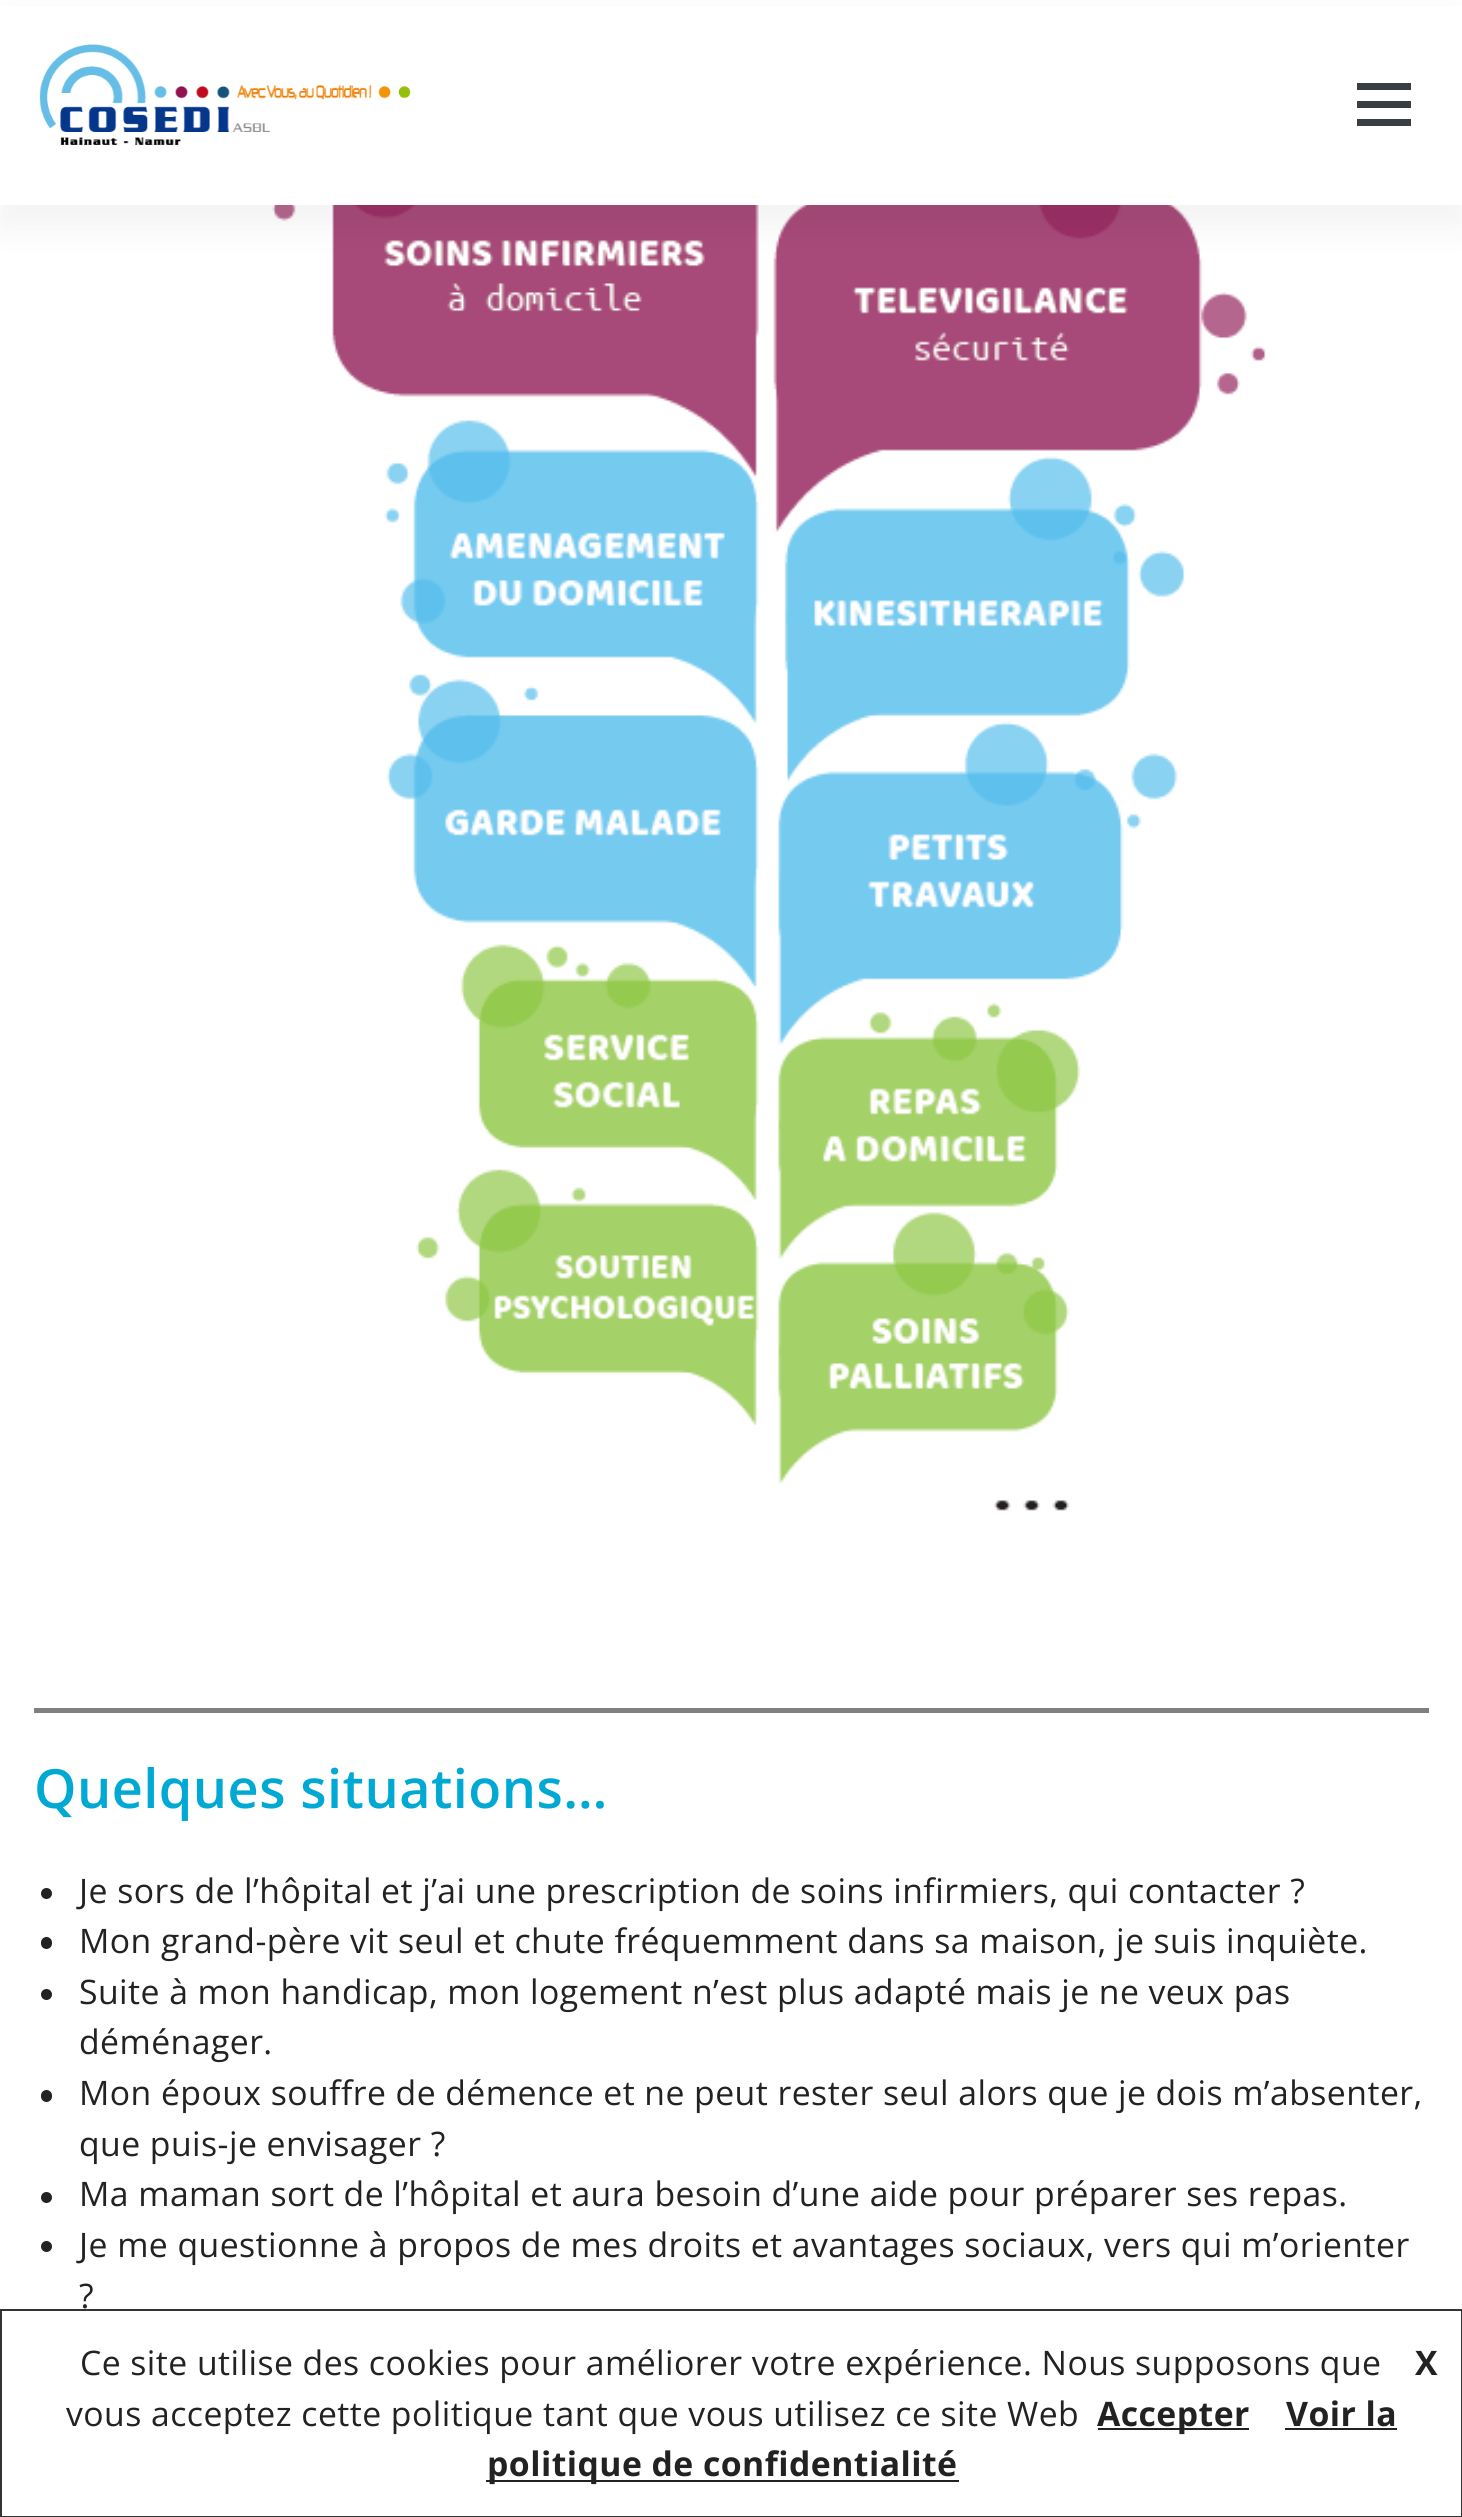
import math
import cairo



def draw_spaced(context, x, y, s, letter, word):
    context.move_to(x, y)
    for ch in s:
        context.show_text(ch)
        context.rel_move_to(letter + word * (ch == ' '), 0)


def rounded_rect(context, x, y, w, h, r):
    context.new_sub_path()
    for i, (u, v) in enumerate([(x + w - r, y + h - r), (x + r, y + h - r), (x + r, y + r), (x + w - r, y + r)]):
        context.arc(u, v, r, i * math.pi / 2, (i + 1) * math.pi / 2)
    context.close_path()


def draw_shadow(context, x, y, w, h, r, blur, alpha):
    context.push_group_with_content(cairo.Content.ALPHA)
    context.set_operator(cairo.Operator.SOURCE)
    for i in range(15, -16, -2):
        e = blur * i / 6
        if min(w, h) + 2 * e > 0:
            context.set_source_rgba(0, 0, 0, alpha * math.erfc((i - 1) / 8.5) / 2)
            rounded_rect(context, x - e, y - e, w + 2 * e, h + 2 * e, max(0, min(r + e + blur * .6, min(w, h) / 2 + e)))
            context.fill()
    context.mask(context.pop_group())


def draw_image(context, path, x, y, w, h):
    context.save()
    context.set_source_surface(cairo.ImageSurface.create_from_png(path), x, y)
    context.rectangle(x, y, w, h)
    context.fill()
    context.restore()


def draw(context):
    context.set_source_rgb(1, 1, 1)
    context.paint()
    draw_image(context, "images/2.png", 272, 205, 994, 1306)
    context.set_source_rgb(0, 0, 0)
    draw_shadow(context, 0, 20, 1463, 207, 0, 17, 0.05)
    context.set_source_rgb(1, 1, 1)
    context.rectangle(0, 6, 1462, 199)
    context.fill()
    draw_image(context, "images/1.png", 39, 44, 372, 101)
    context.set_source_rgb(56 / 255, 62 / 255, 65 / 255)
    context.rectangle(1357, 83, 54, 7)
    context.fill()
    context.rectangle(1357, 101, 54, 7)
    context.fill()
    context.rectangle(1357, 119, 54, 7)
    context.fill()
    context.set_source_rgb(128 / 255, 128 / 255, 128 / 255)
    context.rectangle(34, 1708, 1395, 5)
    context.fill()
    context.set_source_rgb(34 / 255, 34 / 255, 34 / 255)
    context.arc(46.5, 1893.5, 5.5, 0, 2 * math.pi)
    context.fill()
    rounded_rect(context, 41, 1937, 11, 12, 5.5)
    context.fill()
    context.arc(46.5, 1994.5, 5.5, 0, 2 * math.pi)
    context.fill()
    rounded_rect(context, 41, 2090, 11, 12, 5.5)
    context.fill()
    context.arc(46.5, 2197.5, 5.5, 0, 2 * math.pi)
    context.fill()
    context.arc(46.5, 2246.5, 5.5, 0, 2 * math.pi)
    context.fill()
    context.rectangle(1, 2310, 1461, 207)
    context.set_source_rgb(51 / 255, 51 / 255, 51 / 255)
    context.stroke()
    context.set_source_rgb(34 / 255, 34 / 255, 34 / 255)
    context.rectangle(1098, 2428, 151, 2)
    context.fill()
    context.rectangle(1285, 2428, 112, 2)
    context.fill()
    context.rectangle(486, 2480, 473, 2)
    context.fill()
    context.select_font_face("Open Sans SemiBold")
    context.set_font_size(54)
    context.set_source_rgb(0, 169 / 255, 211 / 255)
    draw_spaced(context, 34, 1808, "Quelques situations…", 0.45, 0)
    context.select_font_face("Open Sans")
    context.set_font_size(33.75)
    context.set_source_rgb(34 / 255, 34 / 255, 34 / 255)
    draw_spaced(context, 79, 1903, "Je sors de l’hôpital et j’ai une prescription de soins infirmiers, qui contacter ?", 0.45, 0)
    draw_spaced(context, 79, 1953, "Mon grand-père vit seul et chute fréquemment dans sa maison, je suis inquiète.", 0.45, 0)
    draw_spaced(context, 79, 2004, "Suite à mon handicap, mon logement n’est plus adapté mais je ne veux pas", 0.45, 0)
    draw_spaced(context, 79, 2054, "déménager.", 0.45, 0)
    draw_spaced(context, 79, 2105, "Mon époux souffre de démence et ne peut rester seul alors que je dois m’absenter,", 0.45, 0)
    draw_spaced(context, 79, 2156, "que puis-je envisager ?", 0.45, 0)
    draw_spaced(context, 79, 2206, "Ma maman sort de l’hôpital et aura besoin d’une aide pour préparer ses repas.", 0.45, 0)
    draw_spaced(context, 79, 2257, "Je me questionne à propos de mes droits et avantages sociaux, vers qui m’orienter", 0.45, 0)
    draw_spaced(context, 79, 2308, "?", 0.45, 0)
    draw_spaced(context, 80, 2375, "Ce site utilise des cookies pour améliorer votre expérience. Nous supposons que", 0.45, 0)
    context.select_font_face("Open Sans", cairo.FontSlant.NORMAL, cairo.FontWeight.BOLD)
    draw_spaced(context, 1415, 2375, "X", 0.45, 0)
    context.select_font_face("Open Sans")
    draw_spaced(context, 66, 2426, "vous acceptez cette politique tant que vous utilisez ce site Web", 0.45, 0)
    context.select_font_face("Open Sans", cairo.FontSlant.NORMAL, cairo.FontWeight.BOLD)
    draw_spaced(context, 1097, 2426, "Accepter", 0.45, 0)
    draw_spaced(context, 1286, 2426, "Voir la", 0.45, 0)
    draw_spaced(context, 487, 2476, "politique de confidentialité", 0.45, 0)


surface = cairo.ImageSurface(cairo.Format.RGB24, 1462, 2517)
context = cairo.Context(surface)
options = cairo.FontOptions()
options.set_hint_metrics(cairo.HintMetrics.OFF)
options.set_hint_style(cairo.HintStyle.NONE)
context.set_font_options(options)
context.set_miter_limit(4)
draw(context)
surface.write_to_png("out.png")
